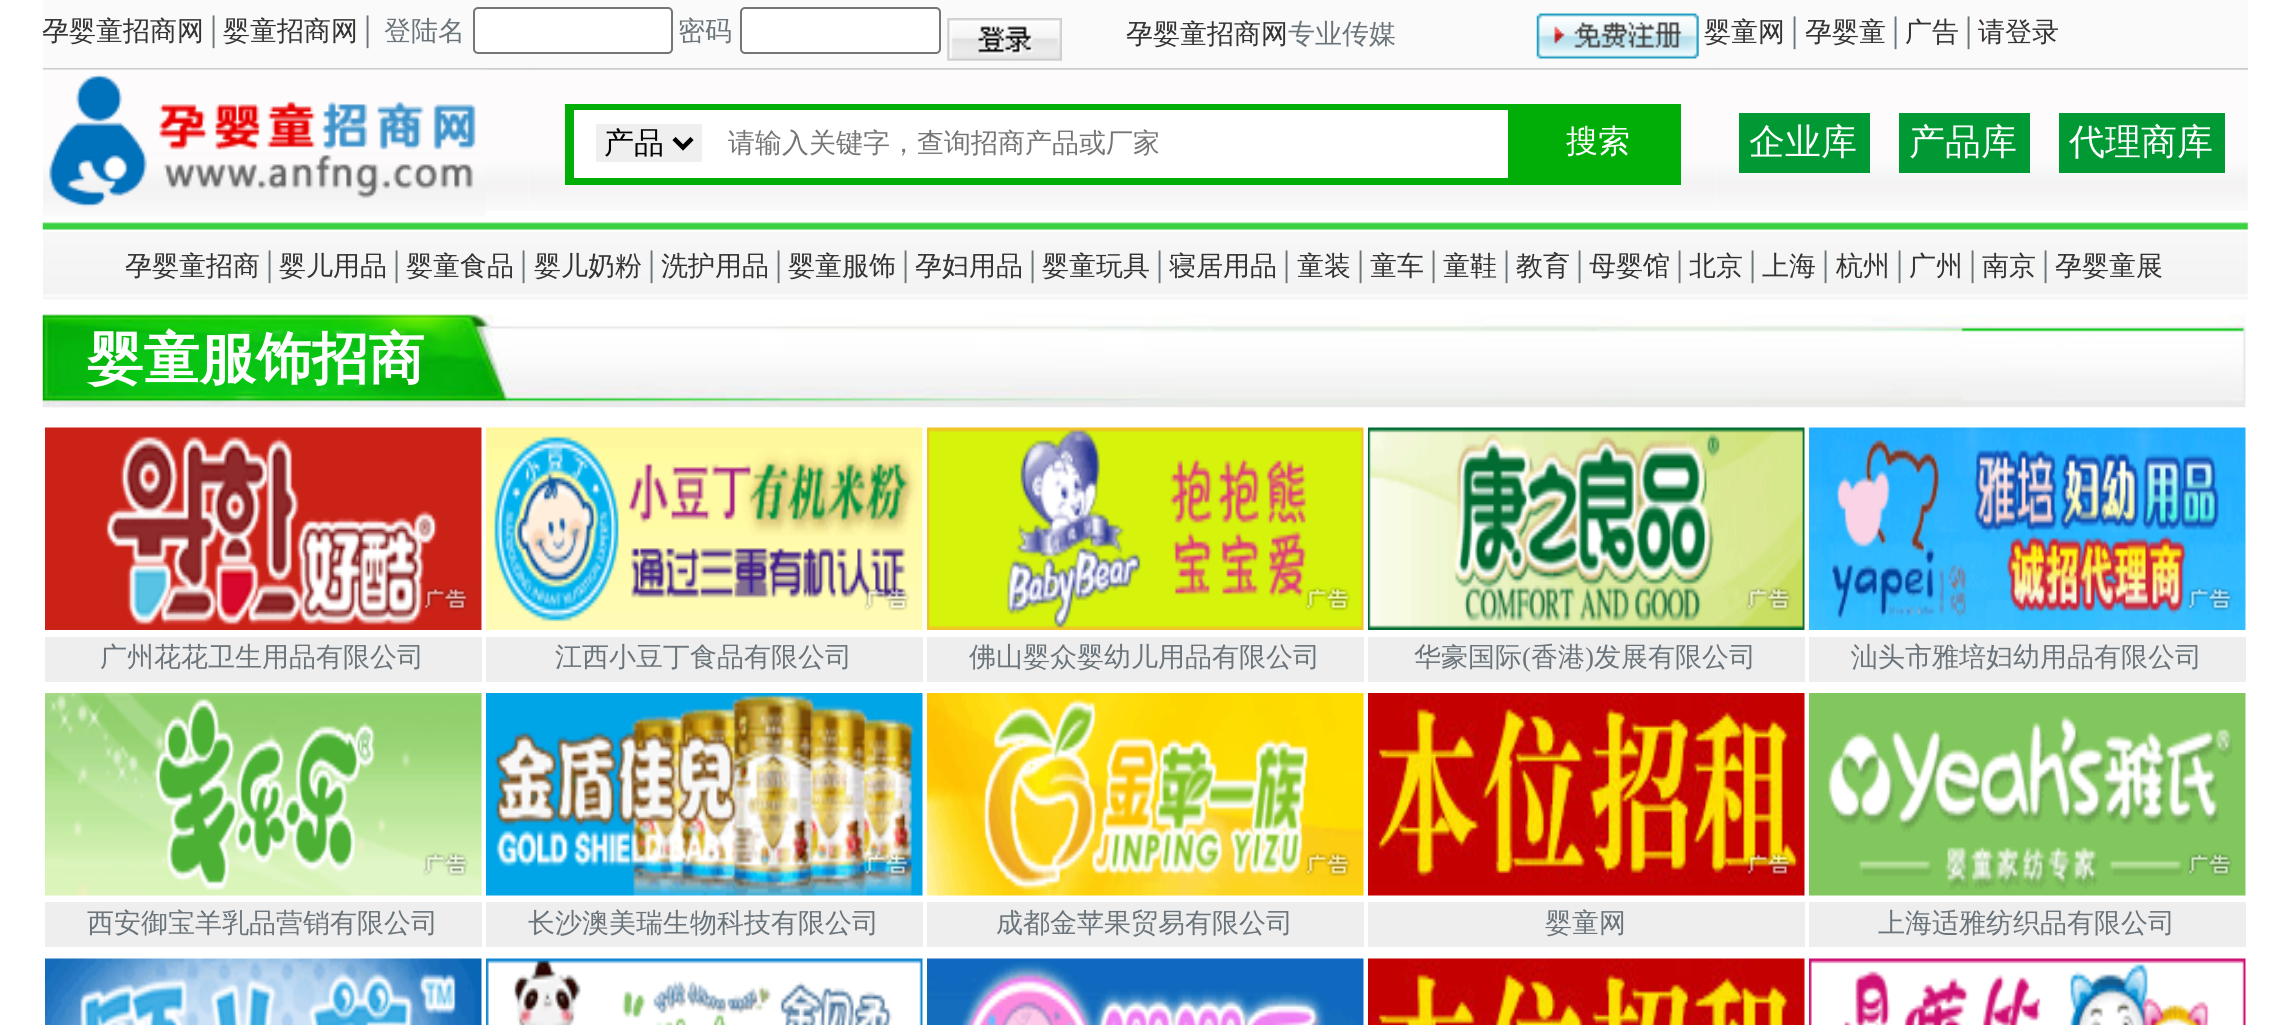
import math
import cairo



def rounded_rect(context, x, y, w, h, r):
    context.new_sub_path()
    for i, (u, v) in enumerate([(x + w - r, y + h - r), (x + r, y + h - r), (x + r, y + r), (x + w - r, y + r)]):
        context.arc(u, v, r, i * math.pi / 2, (i + 1) * math.pi / 2)
    context.close_path()


def draw_image(context, path, x, y, w, h):
    context.save()
    context.set_source_surface(cairo.ImageSurface.create_from_png(path), x, y)
    context.rectangle(x, y, w, h)
    context.fill()
    context.restore()


def draw(context):
    context.set_source_rgb(1, 1, 1)
    context.paint()
    context.set_source_rgb(250 / 255, 250 / 255, 250 / 255)
    context.rectangle(43, 0, 2205, 68)
    context.fill()
    context.set_source_rgb(1, 1, 1)
    rounded_rect(context, 474, 8, 198, 45, 4)
    context.fill_preserve()
    context.set_source_rgb(118 / 255, 118 / 255, 118 / 255)
    context.stroke()
    context.set_source_rgb(1, 1, 1)
    rounded_rect(context, 741, 8, 199, 45, 4)
    context.fill_preserve()
    context.set_source_rgb(118 / 255, 118 / 255, 118 / 255)
    context.stroke()
    draw_image(context, "images/1.png", 947, 18, 115, 43)
    draw_image(context, "images/2.png", 1536, 13, 163, 46)
    context.set_source_rgb(204 / 255, 204 / 255, 204 / 255)
    context.rectangle(43, 68, 2205, 2)
    context.fill()
    draw_image(context, "images/3.png", 43, 69, 486, 142)
    draw_image(context, "images/4.png", 43, 69, 443, 147)
    draw_image(context, "images/5.png", 529, 69, 1188, 142)
    context.set_source_rgb(1 / 255, 174 / 255, 7 / 255)
    context.rectangle(565, 104, 1116, 81)
    context.fill()
    context.set_source_rgb(1, 1, 1)
    context.rectangle(574, 110, 934, 68)
    context.fill()
    context.set_source_rgb(239 / 255, 239 / 255, 239 / 255)
    context.rectangle(596, 124, 106, 38)
    context.fill()
    context.new_path()
    context.move_to(674, 138.5)
    context.line_to(683, 147.5)
    context.line_to(692, 138.5)
    context.set_source_rgb(0, 0, 0)
    context.set_line_width(4.5)
    context.stroke()
    draw_image(context, "images/6.png", 1717, 69, 531, 142)
    context.set_source_rgb(0, 153 / 255, 51 / 255)
    context.rectangle(1739, 113, 131, 60)
    context.fill()
    context.rectangle(1899, 113, 131, 60)
    context.fill()
    context.rectangle(2059, 113, 166, 60)
    context.fill()
    draw_image(context, "images/7.png", 42, 222, 2206, 8)
    draw_image(context, "images/8.png", 43, 232, 2205, 68)
    draw_image(context, "images/9.png", 42, 314, 2204, 94)
    draw_image(context, "images/10.png", 45, 427, 437, 203)
    draw_image(context, "images/11.png", 423, 587, 46, 24)
    context.set_source_rgb(238 / 255, 238 / 255, 238 / 255)
    context.rectangle(45, 637, 437, 45)
    context.fill()
    draw_image(context, "images/12.png", 486, 427, 437, 203)
    draw_image(context, "images/13.png", 864, 587, 46, 24)
    context.rectangle(486, 637, 437, 45)
    context.fill()
    draw_image(context, "images/14.png", 927, 427, 437, 203)
    draw_image(context, "images/15.png", 1305, 587, 46, 24)
    context.rectangle(927, 637, 437, 45)
    context.fill()
    draw_image(context, "images/16.png", 1368, 427, 437, 203)
    draw_image(context, "images/17.png", 1746, 587, 46, 24)
    context.rectangle(1368, 637, 437, 45)
    context.fill()
    draw_image(context, "images/18.png", 1809, 427, 437, 203)
    draw_image(context, "images/19.png", 2187, 587, 46, 24)
    context.rectangle(1809, 637, 437, 45)
    context.fill()
    draw_image(context, "images/20.png", 45, 693, 437, 203)
    draw_image(context, "images/21.png", 423, 852, 46, 24)
    context.rectangle(45, 902, 437, 45)
    context.fill()
    draw_image(context, "images/22.png", 486, 693, 437, 203)
    draw_image(context, "images/23.png", 864, 852, 46, 24)
    context.rectangle(486, 902, 437, 45)
    context.fill()
    draw_image(context, "images/24.png", 927, 693, 437, 203)
    draw_image(context, "images/25.png", 1305, 852, 46, 24)
    context.rectangle(927, 902, 437, 45)
    context.fill()
    draw_image(context, "images/26.png", 1368, 693, 437, 203)
    draw_image(context, "images/27.png", 1746, 852, 46, 24)
    context.rectangle(1368, 902, 437, 45)
    context.fill()
    draw_image(context, "images/28.png", 1809, 693, 437, 203)
    draw_image(context, "images/29.png", 2187, 852, 46, 24)
    context.rectangle(1809, 902, 437, 45)
    context.fill()
    draw_image(context, "images/30.png", 45, 958, 437, 67)
    draw_image(context, "images/31.png", 486, 958, 437, 67)
    draw_image(context, "images/32.png", 927, 958, 437, 67)
    draw_image(context, "images/33.png", 1368, 958, 437, 67)
    draw_image(context, "images/34.png", 1809, 958, 437, 67)
    context.select_font_face("WenQuanYi Zen Hei Medium")
    context.set_font_size(27)
    context.set_source_rgb(51 / 255, 51 / 255, 51 / 255)
    context.move_to(42, 40)
    context.show_text("孕婴童招商网")
    context.select_font_face("Liberation Serif")
    context.set_source_rgb(106 / 255, 116 / 255, 122 / 255)
    context.move_to(204, 40)
    context.show_text("│")
    context.select_font_face("WenQuanYi Zen Hei Medium")
    context.set_source_rgb(51 / 255, 51 / 255, 51 / 255)
    context.move_to(223, 40)
    context.show_text("婴童招商网")
    context.select_font_face("Liberation Serif")
    context.set_source_rgb(106 / 255, 116 / 255, 122 / 255)
    context.move_to(358, 40)
    context.show_text("│")
    context.select_font_face("WenQuanYi Zen Hei Medium")
    context.move_to(384, 40)
    context.show_text("登陆名")
    context.move_to(678, 40)
    context.show_text("密码")
    context.set_source_rgb(51 / 255, 51 / 255, 51 / 255)
    context.move_to(1126, 43)
    context.show_text("孕婴童招商网")
    context.set_source_rgb(106 / 255, 116 / 255, 122 / 255)
    context.move_to(1288, 43)
    context.show_text("专业传媒")
    context.set_source_rgb(51 / 255, 51 / 255, 51 / 255)
    context.move_to(1704, 41)
    context.show_text("婴童网")
    context.select_font_face("Liberation Serif")
    context.set_source_rgb(106 / 255, 116 / 255, 122 / 255)
    context.move_to(1785, 41)
    context.show_text("│")
    context.select_font_face("WenQuanYi Zen Hei Medium")
    context.set_source_rgb(51 / 255, 51 / 255, 51 / 255)
    context.move_to(1805, 41)
    context.show_text("孕婴童")
    context.select_font_face("Liberation Serif")
    context.set_source_rgb(106 / 255, 116 / 255, 122 / 255)
    context.move_to(1886, 41)
    context.show_text("│")
    context.select_font_face("WenQuanYi Zen Hei Medium")
    context.set_source_rgb(51 / 255, 51 / 255, 51 / 255)
    context.move_to(1905, 41)
    context.show_text("广告")
    context.select_font_face("Liberation Serif")
    context.set_source_rgb(106 / 255, 116 / 255, 122 / 255)
    context.move_to(1959, 41)
    context.show_text("│")
    context.select_font_face("WenQuanYi Zen Hei Medium")
    context.set_source_rgb(51 / 255, 51 / 255, 51 / 255)
    context.move_to(1978, 41)
    context.show_text("请登录")
    context.set_font_size(30)
    context.set_source_rgb(0, 0, 0)
    context.move_to(604, 153)
    context.show_text("产品")
    context.set_font_size(27)
    context.set_source_rgb(117 / 255, 117 / 255, 117 / 255)
    context.move_to(728, 152)
    context.show_text("请输入关键字，查询招商产品或厂家")
    context.set_font_size(32)
    context.set_source_rgb(1, 1, 1)
    context.move_to(1566, 152)
    context.show_text("搜索")
    context.set_font_size(36)
    context.move_to(1749, 154)
    context.show_text("企业库")
    context.move_to(1909, 154)
    context.show_text("产品库")
    context.move_to(2069, 154)
    context.show_text("代理商库")
    context.set_font_size(27)
    context.set_source_rgb(51 / 255, 51 / 255, 51 / 255)
    context.move_to(125, 275)
    context.show_text("孕婴童招商")
    context.select_font_face("Liberation Serif")
    context.set_source_rgb(106 / 255, 116 / 255, 122 / 255)
    context.move_to(260, 275)
    context.show_text("│")
    context.select_font_face("WenQuanYi Zen Hei Medium")
    context.set_source_rgb(51 / 255, 51 / 255, 51 / 255)
    context.move_to(279, 275)
    context.show_text("婴儿用品")
    context.select_font_face("Liberation Serif")
    context.set_source_rgb(106 / 255, 116 / 255, 122 / 255)
    context.move_to(387, 275)
    context.show_text("│")
    context.select_font_face("WenQuanYi Zen Hei Medium")
    context.set_source_rgb(51 / 255, 51 / 255, 51 / 255)
    context.move_to(406, 275)
    context.show_text("婴童食品")
    context.select_font_face("Liberation Serif")
    context.set_source_rgb(106 / 255, 116 / 255, 122 / 255)
    context.move_to(514, 275)
    context.show_text("│")
    context.select_font_face("WenQuanYi Zen Hei Medium")
    context.set_source_rgb(51 / 255, 51 / 255, 51 / 255)
    context.move_to(534, 275)
    context.show_text("婴儿奶粉")
    context.select_font_face("Liberation Serif")
    context.set_source_rgb(106 / 255, 116 / 255, 122 / 255)
    context.move_to(642, 275)
    context.show_text("│")
    context.select_font_face("WenQuanYi Zen Hei Medium")
    context.set_source_rgb(51 / 255, 51 / 255, 51 / 255)
    context.move_to(661, 275)
    context.show_text("洗护用品")
    context.select_font_face("Liberation Serif")
    context.set_source_rgb(106 / 255, 116 / 255, 122 / 255)
    context.move_to(769, 275)
    context.show_text("│")
    context.select_font_face("WenQuanYi Zen Hei Medium")
    context.set_source_rgb(51 / 255, 51 / 255, 51 / 255)
    context.move_to(788, 275)
    context.show_text("婴童服饰")
    context.select_font_face("Liberation Serif")
    context.set_source_rgb(106 / 255, 116 / 255, 122 / 255)
    context.move_to(896, 275)
    context.show_text("│")
    context.select_font_face("WenQuanYi Zen Hei Medium")
    context.set_source_rgb(51 / 255, 51 / 255, 51 / 255)
    context.move_to(915, 275)
    context.show_text("孕妇用品")
    context.select_font_face("Liberation Serif")
    context.set_source_rgb(106 / 255, 116 / 255, 122 / 255)
    context.move_to(1023, 275)
    context.show_text("│")
    context.select_font_face("WenQuanYi Zen Hei Medium")
    context.set_source_rgb(51 / 255, 51 / 255, 51 / 255)
    context.move_to(1042, 275)
    context.show_text("婴童玩具")
    context.select_font_face("Liberation Serif")
    context.set_source_rgb(106 / 255, 116 / 255, 122 / 255)
    context.move_to(1150, 275)
    context.show_text("│")
    context.select_font_face("WenQuanYi Zen Hei Medium")
    context.set_source_rgb(51 / 255, 51 / 255, 51 / 255)
    context.move_to(1169, 275)
    context.show_text("寝居用品")
    context.select_font_face("Liberation Serif")
    context.set_source_rgb(106 / 255, 116 / 255, 122 / 255)
    context.move_to(1277, 275)
    context.show_text("│")
    context.select_font_face("WenQuanYi Zen Hei Medium")
    context.set_source_rgb(51 / 255, 51 / 255, 51 / 255)
    context.move_to(1297, 275)
    context.show_text("童装")
    context.select_font_face("Liberation Serif")
    context.set_source_rgb(106 / 255, 116 / 255, 122 / 255)
    context.move_to(1351, 275)
    context.show_text("│")
    context.select_font_face("WenQuanYi Zen Hei Medium")
    context.set_source_rgb(51 / 255, 51 / 255, 51 / 255)
    context.move_to(1370, 275)
    context.show_text("童车")
    context.select_font_face("Liberation Serif")
    context.set_source_rgb(106 / 255, 116 / 255, 122 / 255)
    context.move_to(1424, 275)
    context.show_text("│")
    context.select_font_face("WenQuanYi Zen Hei Medium")
    context.set_source_rgb(51 / 255, 51 / 255, 51 / 255)
    context.move_to(1443, 275)
    context.show_text("童鞋")
    context.select_font_face("Liberation Serif")
    context.set_source_rgb(106 / 255, 116 / 255, 122 / 255)
    context.move_to(1497, 275)
    context.show_text("│")
    context.select_font_face("WenQuanYi Zen Hei Medium")
    context.set_source_rgb(51 / 255, 51 / 255, 51 / 255)
    context.move_to(1516, 275)
    context.show_text("教育")
    context.select_font_face("Liberation Serif")
    context.set_source_rgb(106 / 255, 116 / 255, 122 / 255)
    context.move_to(1570, 275)
    context.show_text("│")
    context.select_font_face("WenQuanYi Zen Hei Medium")
    context.set_source_rgb(51 / 255, 51 / 255, 51 / 255)
    context.move_to(1589, 275)
    context.show_text("母婴馆")
    context.select_font_face("Liberation Serif")
    context.set_source_rgb(106 / 255, 116 / 255, 122 / 255)
    context.move_to(1670, 275)
    context.show_text("│")
    context.select_font_face("WenQuanYi Zen Hei Medium")
    context.set_source_rgb(51 / 255, 51 / 255, 51 / 255)
    context.move_to(1689, 275)
    context.show_text("北京")
    context.select_font_face("Liberation Serif")
    context.set_source_rgb(106 / 255, 116 / 255, 122 / 255)
    context.move_to(1743, 275)
    context.show_text("│")
    context.select_font_face("WenQuanYi Zen Hei Medium")
    context.set_source_rgb(51 / 255, 51 / 255, 51 / 255)
    context.move_to(1762, 275)
    context.show_text("上海")
    context.select_font_face("Liberation Serif")
    context.set_source_rgb(106 / 255, 116 / 255, 122 / 255)
    context.move_to(1816, 275)
    context.show_text("│")
    context.select_font_face("WenQuanYi Zen Hei Medium")
    context.set_source_rgb(51 / 255, 51 / 255, 51 / 255)
    context.move_to(1836, 275)
    context.show_text("杭州")
    context.select_font_face("Liberation Serif")
    context.set_source_rgb(106 / 255, 116 / 255, 122 / 255)
    context.move_to(1890, 275)
    context.show_text("│")
    context.select_font_face("WenQuanYi Zen Hei Medium")
    context.set_source_rgb(51 / 255, 51 / 255, 51 / 255)
    context.move_to(1909, 275)
    context.show_text("广州")
    context.select_font_face("Liberation Serif")
    context.set_source_rgb(106 / 255, 116 / 255, 122 / 255)
    context.move_to(1963, 275)
    context.show_text("│")
    context.select_font_face("WenQuanYi Zen Hei Medium")
    context.set_source_rgb(51 / 255, 51 / 255, 51 / 255)
    context.move_to(1982, 275)
    context.show_text("南京")
    context.select_font_face("Liberation Serif")
    context.set_source_rgb(106 / 255, 116 / 255, 122 / 255)
    context.move_to(2036, 275)
    context.show_text("│")
    context.select_font_face("WenQuanYi Zen Hei Medium")
    context.set_source_rgb(51 / 255, 51 / 255, 51 / 255)
    context.move_to(2055, 275)
    context.show_text("孕婴童展")
    context.select_font_face("WenQuanYi Zen Hei", cairo.FontSlant.NORMAL, cairo.FontWeight.BOLD)
    context.set_font_size(56.25)
    context.set_source_rgb(1, 1, 1)
    context.move_to(87, 378)
    context.show_text("婴童服饰招商")
    context.select_font_face("WenQuanYi Zen Hei Medium")
    context.set_font_size(27)
    context.set_source_rgb(106 / 255, 116 / 255, 122 / 255)
    context.move_to(100, 666)
    context.show_text("广州花花卫生用品有限公司")
    context.move_to(555, 666)
    context.show_text("江西小豆丁食品有限公司")
    context.move_to(969, 666)
    context.show_text("佛山婴众婴幼儿用品有限公司")
    context.move_to(1414, 666)
    context.show_text("华豪国际")
    context.select_font_face("Liberation Serif")
    context.move_to(1522, 666)
    context.show_text("(")
    context.select_font_face("WenQuanYi Zen Hei Medium")
    context.move_to(1531, 666)
    context.show_text("香港")
    context.select_font_face("Liberation Serif")
    context.move_to(1585, 666)
    context.show_text(")")
    context.select_font_face("WenQuanYi Zen Hei Medium")
    context.move_to(1594, 666)
    context.show_text("发展有限公司")
    context.move_to(1851, 666)
    context.show_text("汕头市雅培妇幼用品有限公司")
    context.move_to(87, 932)
    context.show_text("西安御宝羊乳品营销有限公司")
    context.move_to(528, 932)
    context.show_text("长沙澳美瑞生物科技有限公司")
    context.move_to(996, 932)
    context.show_text("成都金苹果贸易有限公司")
    context.move_to(1545, 932)
    context.show_text("婴童网")
    context.move_to(1878, 932)
    context.show_text("上海适雅纺织品有限公司")


surface = cairo.ImageSurface(cairo.Format.RGB24, 2288, 1025)
context = cairo.Context(surface)
options = cairo.FontOptions()
options.set_hint_metrics(cairo.HintMetrics.OFF)
options.set_hint_style(cairo.HintStyle.NONE)
context.set_font_options(options)
context.set_miter_limit(4)
draw(context)
surface.write_to_png("out.png")
